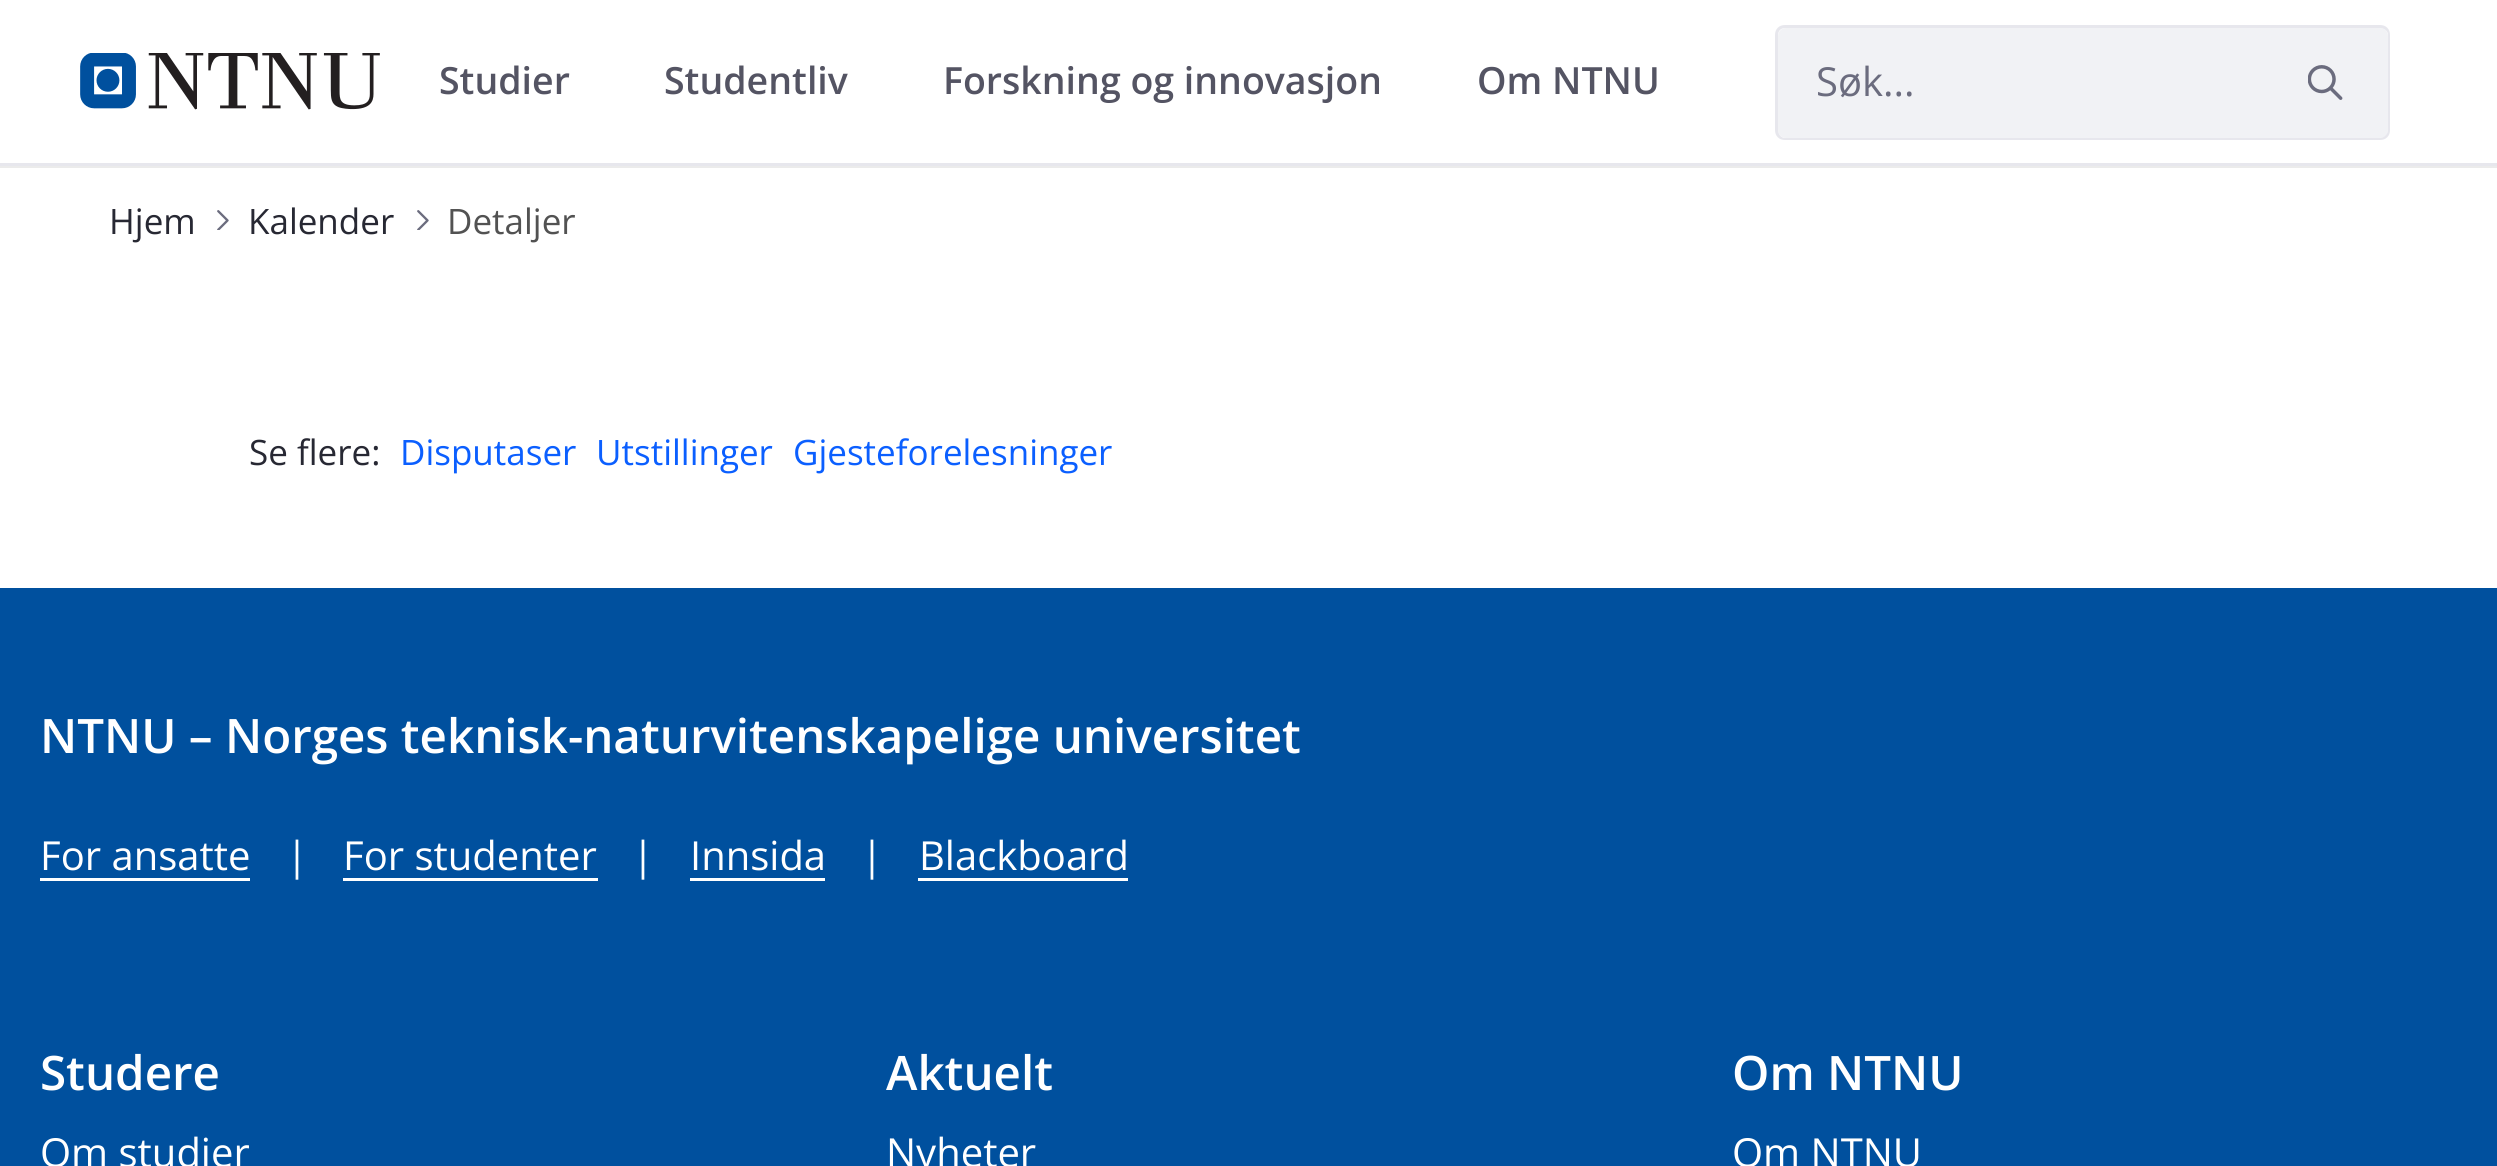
import math
import cairo



def draw_image(context, path, x, y, w, h):
    context.save()
    context.set_source_surface(cairo.ImageSurface.create_from_png(path), x, y)
    context.rectangle(x, y, w, h)
    context.fill()
    context.restore()


def draw(context):
    context.set_source_rgb(1, 1, 1)
    context.paint()
    context.set_source_rgba(0, 0, 0, 0.08)
    context.new_path()
    context.move_to(0, 165)
    context.line_to(0, 168)
    context.line_to(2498, 168)
    context.line_to(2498, 3)
    context.line_to(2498, 165)
    context.close_path()
    context.fill()
    context.set_source_rgb(231 / 255, 231 / 255, 237 / 255)
    context.rectangle(0, 163, 2497, 3)
    context.fill()
    draw_image(context, "images/1.png", 80, 53, 300, 57)
    context.set_source_rgb(241 / 255, 242 / 255, 245 / 255)
    context.new_path()
    context.move_to(1786, 28)
    context.line_to(2265, 28)
    context.line_to(2265, 138)
    context.line_to(1786, 138)
    context.curve_to(1781.5, 138, 1778, 134.5, 1778, 130)
    context.line_to(1778, 36)
    context.curve_to(1778, 31.5, 1781.5, 28, 1786, 28)
    context.close_path()
    context.fill()
    context.set_source_rgb(231 / 255, 231 / 255, 237 / 255)
    context.set_fill_rule(cairo.FillRule.EVEN_ODD)
    context.new_path()
    context.move_to(1785, 25)
    context.line_to(2265, 25)
    context.line_to(2265, 140)
    context.line_to(1785, 140)
    context.curve_to(1779, 140, 1775, 136, 1775, 130)
    context.line_to(1775, 35)
    context.curve_to(1775, 29, 1779, 25, 1785, 25)
    context.close_path()
    context.move_to(1785, 28)
    context.line_to(2265, 28)
    context.line_to(2265, 138)
    context.line_to(1785, 138)
    context.curve_to(1781, 138, 1778, 134, 1778, 130)
    context.line_to(1778, 35)
    context.curve_to(1778, 31, 1781, 28, 1785, 28)
    context.close_path()
    context.fill()
    context.set_source_rgb(241 / 255, 242 / 255, 245 / 255)
    context.new_path()
    context.move_to(2265, 28)
    context.line_to(2380, 28)
    context.curve_to(2384.5, 28, 2388, 31.5, 2388, 36)
    context.line_to(2388, 130)
    context.curve_to(2388, 134.5, 2384.5, 138, 2380, 138)
    context.line_to(2265, 138)
    context.close_path()
    context.fill()
    context.set_source_rgb(231 / 255, 231 / 255, 237 / 255)
    context.new_path()
    context.move_to(2265, 25)
    context.line_to(2380, 25)
    context.curve_to(2386, 25, 2390, 29, 2390, 35)
    context.line_to(2390, 130)
    context.curve_to(2390, 136, 2386, 140, 2380, 140)
    context.line_to(2265, 140)
    context.close_path()
    context.move_to(2265, 28)
    context.line_to(2380, 28)
    context.curve_to(2384, 28, 2388, 31, 2388, 35)
    context.line_to(2388, 130)
    context.curve_to(2388, 134, 2384, 138, 2380, 138)
    context.line_to(2265, 138)
    context.close_path()
    context.fill()
    draw_image(context, "images/2.png", 2308, 65, 35, 35)
    draw_image(context, "images/3.png", 217, 210, 12, 20)
    draw_image(context, "images/3.png", 417, 210, 12, 20)
    context.set_source_rgb(0, 80 / 255, 158 / 255)
    context.rectangle(0, 588, 2497, 578)
    context.fill()
    context.set_source_rgb(1, 1, 1)
    context.rectangle(40, 878, 210, 3)
    context.fill()
    context.rectangle(343, 878, 255, 3)
    context.fill()
    context.rectangle(690, 878, 135, 3)
    context.fill()
    context.rectangle(918, 878, 210, 3)
    context.fill()
    context.select_font_face("Open Sans SemiBold")
    context.set_font_size(37.5)
    context.set_source_rgb(84 / 255, 84 / 255, 99 / 255)
    context.move_to(439, 94)
    context.show_text("Studier")
    context.move_to(664, 94)
    context.show_text("Studentliv")
    context.move_to(943, 94)
    context.show_text("Forskning og innovasjon")
    context.move_to(1477, 94)
    context.show_text("Om NTNU")
    context.select_font_face("Open Sans")
    context.set_font_size(40)
    context.set_source_rgb(107 / 255, 108 / 255, 126 / 255)
    context.move_to(1816, 96)
    context.show_text("Søk...")
    context.set_font_size(35)
    context.set_source_rgb(39 / 255, 40 / 255, 51 / 255)
    context.move_to(109, 234)
    context.show_text("Hjem")
    context.move_to(248, 234)
    context.show_text("Kalender")
    context.set_source_rgb(82 / 255, 82 / 255, 82 / 255)
    context.move_to(447, 234)
    context.show_text("Detaljer")
    context.set_source_rgb(39 / 255, 40 / 255, 51 / 255)
    context.move_to(249, 465)
    context.show_text("Se flere:")
    context.set_source_rgb(11 / 255, 95 / 255, 1)
    context.move_to(400, 465)
    context.show_text("Disputaser")
    context.move_to(596, 465)
    context.show_text("Utstillinger")
    context.move_to(793, 465)
    context.show_text("Gjesteforelesninger")
    context.select_font_face("Open Sans SemiBold")
    context.set_font_size(47.5)
    context.set_source_rgb(1, 1, 1)
    context.move_to(40, 753)
    context.show_text("NTNU – Norges teknisk-naturvitenskapelige universitet")
    context.select_font_face("Open Sans")
    context.set_font_size(40)
    context.move_to(40, 870)
    context.show_text("For ansatte")
    context.move_to(286, 870)
    context.show_text("|")
    context.move_to(343, 870)
    context.show_text("For studenter")
    context.move_to(632, 870)
    context.show_text("|")
    context.move_to(690, 870)
    context.show_text("Innsida")
    context.move_to(861, 870)
    context.show_text("|")
    context.move_to(919, 870)
    context.show_text("Blackboard")
    context.select_font_face("Open Sans SemiBold")
    context.set_font_size(47.5)
    context.move_to(40, 1090)
    context.show_text("Studere")
    context.select_font_face("Open Sans")
    context.set_font_size(40)
    context.move_to(40, 1167)
    context.show_text("Om studier")
    context.select_font_face("Open Sans SemiBold")
    context.set_font_size(47.5)
    context.move_to(886, 1090)
    context.show_text("Aktuelt")
    context.select_font_face("Open Sans")
    context.set_font_size(40)
    context.move_to(886, 1167)
    context.show_text("Nyheter")
    context.select_font_face("Open Sans SemiBold")
    context.set_font_size(47.5)
    context.move_to(1732, 1090)
    context.show_text("Om NTNU")
    context.select_font_face("Open Sans")
    context.set_font_size(40)
    context.move_to(1732, 1167)
    context.show_text("Om NTNU")


surface = cairo.ImageSurface(cairo.Format.RGB24, 2497, 1166)
context = cairo.Context(surface)
options = cairo.FontOptions()
options.set_hint_metrics(cairo.HintMetrics.OFF)
options.set_hint_style(cairo.HintStyle.NONE)
context.set_font_options(options)
context.set_miter_limit(4)
draw(context)
surface.write_to_png("out.png")
